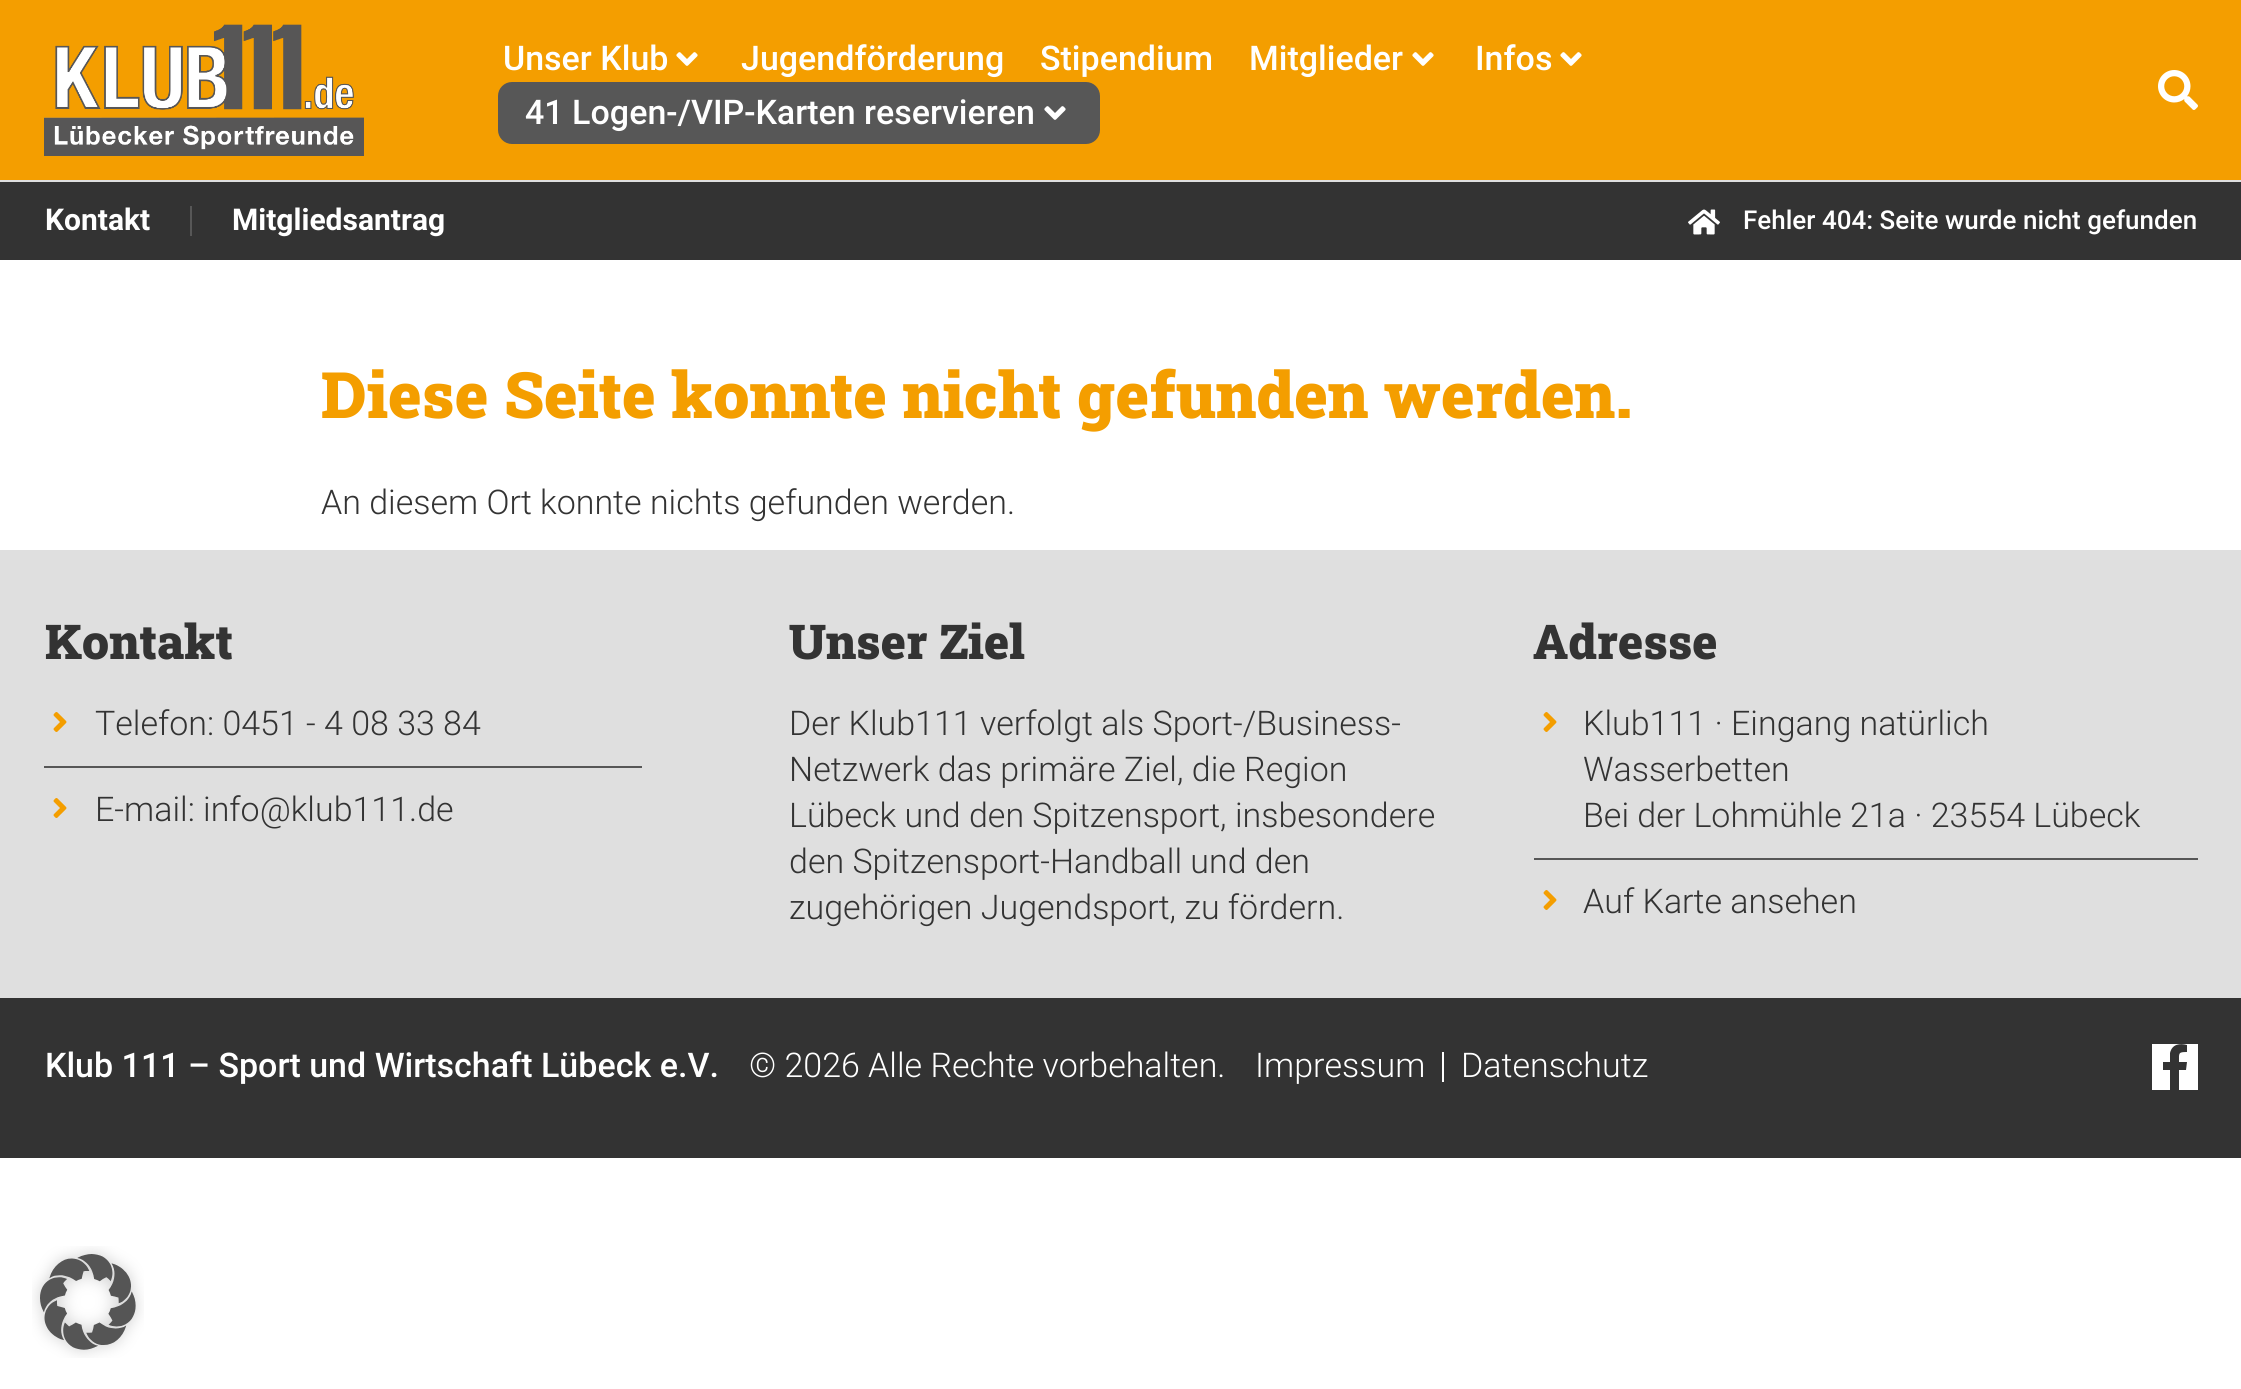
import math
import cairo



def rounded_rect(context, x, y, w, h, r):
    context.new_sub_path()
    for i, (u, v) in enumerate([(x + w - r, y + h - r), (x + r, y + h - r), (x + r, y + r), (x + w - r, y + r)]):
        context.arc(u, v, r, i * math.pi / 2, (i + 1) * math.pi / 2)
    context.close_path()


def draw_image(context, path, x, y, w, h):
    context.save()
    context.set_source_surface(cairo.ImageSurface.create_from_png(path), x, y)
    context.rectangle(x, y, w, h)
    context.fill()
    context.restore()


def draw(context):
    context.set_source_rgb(1, 1, 1)
    context.paint()
    context.set_source_rgb(244 / 255, 158 / 255, 0)
    context.rectangle(0, 0, 2241, 180)
    context.fill()
    draw_image(context, "images/1.png", 44, 24, 320, 132)
    draw_image(context, "images/2.png", 676, 52, 22, 14)
    draw_image(context, "images/2.png", 1412, 52, 22, 14)
    draw_image(context, "images/2.png", 1560, 52, 22, 14)
    context.set_source_rgb(87 / 255, 87 / 255, 87 / 255)
    rounded_rect(context, 498, 82, 602, 62, 14)
    context.fill()
    draw_image(context, "images/3.png", 1044, 106, 22, 14)
    draw_image(context, "images/4.png", 2158, 70, 40, 40)
    context.set_source_rgb(51 / 255, 51 / 255, 51 / 255)
    context.rectangle(0, 182, 2241, 78)
    context.fill()
    context.set_source_rgb(223 / 255, 223 / 255, 223 / 255)
    context.rectangle(0, 180, 2241, 2)
    context.fill()
    context.set_source_rgb(87 / 255, 87 / 255, 87 / 255)
    context.rectangle(190, 206, 2, 30)
    context.fill()
    draw_image(context, "images/5.png", 1688, 209, 32, 26)
    context.set_source_rgb(223 / 255, 223 / 255, 223 / 255)
    context.rectangle(0, 550, 2241, 448)
    context.fill()
    draw_image(context, "images/6.png", 53, 712, 14, 20)
    context.set_source_rgb(87 / 255, 87 / 255, 87 / 255)
    context.rectangle(44, 766, 598, 2)
    context.fill()
    draw_image(context, "images/6.png", 53, 798, 14, 20)
    draw_image(context, "images/6.png", 1543, 712, 14, 20)
    context.rectangle(1534, 858, 664, 2)
    context.fill()
    draw_image(context, "images/6.png", 1543, 890, 14, 20)
    context.set_source_rgb(51 / 255, 51 / 255, 51 / 255)
    context.rectangle(0, 998, 2241, 160)
    context.fill()
    context.set_source_rgb(1, 1, 1)
    context.rectangle(1442, 1052, 2, 30)
    context.fill()
    context.rectangle(2152, 1044, 46, 46)
    context.fill()
    context.set_source_rgb(51 / 255, 51 / 255, 51 / 255)
    context.new_path()
    context.move_to(2186, 1070)
    context.line_to(2187, 1062)
    context.line_to(2179, 1062)
    context.curve_to(2179, 1053, 2178, 1052, 2187, 1052)
    context.line_to(2187, 1045)
    context.curve_to(2180, 1043, 2172, 1044, 2170, 1053)
    context.line_to(2170, 1062)
    context.line_to(2163, 1062)
    context.line_to(2163, 1070)
    context.line_to(2170, 1070)
    context.line_to(2170, 1090)
    context.line_to(2179, 1090)
    context.line_to(2179, 1070)
    context.close_path()
    context.fill()
    draw_image(context, "images/7.png", 32, 1246, 112, 112)
    context.select_font_face("Roboto Medium")
    context.set_font_size(34)
    context.set_source_rgb(1, 1, 1)
    context.move_to(503, 70)
    context.show_text("Unser Klub")
    context.move_to(741, 70)
    context.show_text("Jugendförderung")
    context.move_to(1040, 70)
    context.show_text("Stipendium")
    context.move_to(1249, 70)
    context.show_text("Mitglieder")
    context.move_to(1475, 70)
    context.show_text("Infos")
    context.move_to(525, 124)
    context.show_text("41 Logen-/VIP-Karten reservieren")
    context.select_font_face("Roboto", cairo.FontSlant.NORMAL, cairo.FontWeight.BOLD)
    context.set_font_size(30)
    context.move_to(45, 230)
    context.show_text("Kontakt")
    context.move_to(232, 230)
    context.show_text("Mitgliedsantrag")
    context.select_font_face("Roboto Medium")
    context.set_font_size(26)
    context.move_to(1743, 229)
    context.show_text("Fehler 404: Seite wurde nicht gefunden")
    context.select_font_face("Roboto Slab Black")
    context.set_font_size(64)
    context.set_source_rgb(244 / 255, 158 / 255, 0)
    context.move_to(321, 418)
    context.show_text("Diese Seite konnte nicht gefunden werden.")
    context.select_font_face("Roboto Light")
    context.set_font_size(34)
    context.set_source_rgb(51 / 255, 51 / 255, 51 / 255)
    context.move_to(321, 514)
    context.show_text("An diesem Ort konnte nichts gefunden werden.")
    context.select_font_face("Roboto Slab Black")
    context.set_font_size(48)
    context.move_to(45, 659)
    context.show_text("Kontakt")
    context.select_font_face("Roboto Light")
    context.set_font_size(34)
    context.move_to(95, 735)
    context.show_text("Telefon: 0451 - 4 08 33 84")
    context.move_to(95, 821)
    context.show_text("E-mail: info@klub111.de")
    context.select_font_face("Roboto Slab Black")
    context.set_font_size(48)
    context.move_to(789, 659)
    context.show_text("Unser Ziel")
    context.select_font_face("Roboto Light")
    context.set_font_size(34)
    context.move_to(789, 735)
    context.show_text("Der Klub111 verfolgt als Sport-/Business-")
    context.move_to(789, 781)
    context.show_text("Netzwerk das primäre Ziel, die Region")
    context.move_to(789, 827)
    context.show_text("Lübeck und den Spitzensport, insbesondere")
    context.move_to(789, 873)
    context.show_text("den Spitzensport-Handball und den")
    context.move_to(789, 919)
    context.show_text("zugehörigen Jugendsport, zu fördern.")
    context.select_font_face("Roboto Slab Black")
    context.set_font_size(48)
    context.move_to(1533, 659)
    context.show_text("Adresse")
    context.select_font_face("Roboto Light")
    context.set_font_size(34)
    context.move_to(1583, 735)
    context.show_text("Klub111 · Eingang natürlich")
    context.move_to(1583, 781)
    context.show_text("Wasserbetten")
    context.move_to(1583, 827)
    context.show_text("Bei der Lohmühle 21a · 23554 Lübeck")
    context.move_to(1583, 913)
    context.show_text("Auf Karte ansehen")
    context.select_font_face("Roboto Medium")
    context.set_source_rgb(1, 1, 1)
    context.move_to(45, 1077)
    context.show_text("Klub 111 – Sport und Wirtschaft Lübeck e.V.")
    context.select_font_face("Roboto Light")
    context.move_to(749, 1077)
    context.show_text("© 2026 Alle Rechte vorbehalten.")
    context.move_to(1255, 1077)
    context.show_text("Impressum")
    context.move_to(1461, 1077)
    context.show_text("Datenschutz")


surface = cairo.ImageSurface(cairo.Format.RGB24, 2241, 1389)
context = cairo.Context(surface)
options = cairo.FontOptions()
options.set_hint_metrics(cairo.HintMetrics.OFF)
options.set_hint_style(cairo.HintStyle.NONE)
context.set_font_options(options)
context.set_miter_limit(4)
draw(context)
surface.write_to_png("out.png")
